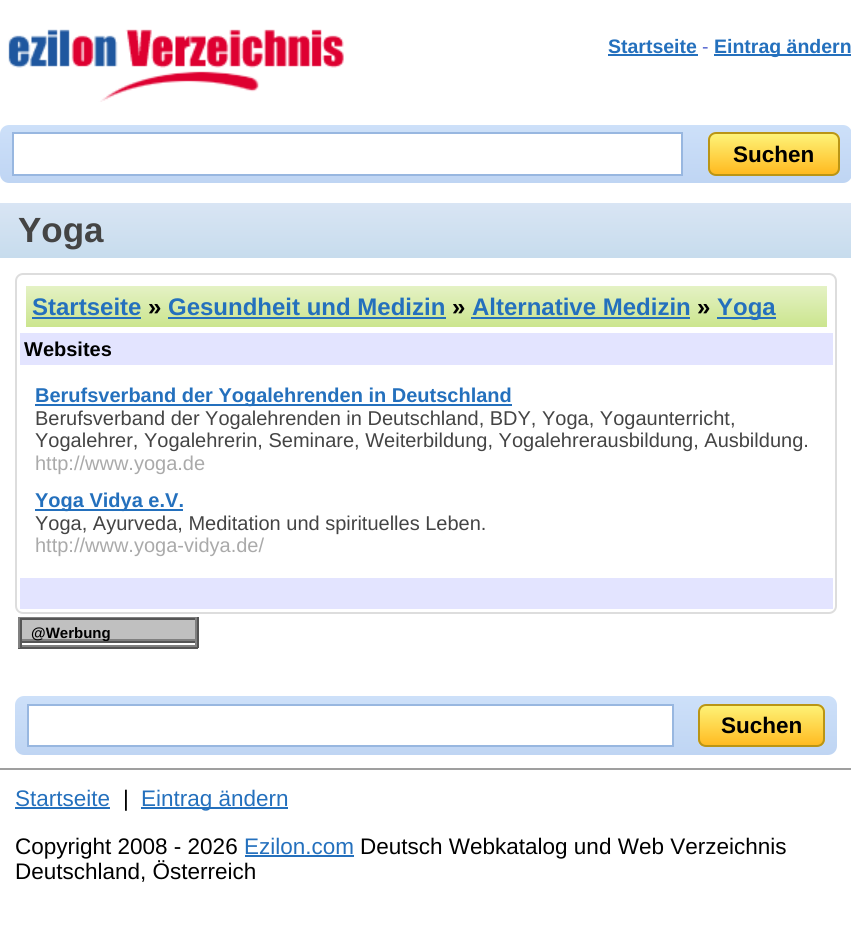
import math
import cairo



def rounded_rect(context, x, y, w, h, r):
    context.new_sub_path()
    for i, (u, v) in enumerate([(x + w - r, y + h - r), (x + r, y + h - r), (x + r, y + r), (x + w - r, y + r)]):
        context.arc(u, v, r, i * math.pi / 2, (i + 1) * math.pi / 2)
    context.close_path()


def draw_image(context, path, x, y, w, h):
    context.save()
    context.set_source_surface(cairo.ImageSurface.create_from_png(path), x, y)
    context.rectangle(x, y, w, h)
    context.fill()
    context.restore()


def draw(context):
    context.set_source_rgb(1, 1, 1)
    context.paint()
    draw_image(context, "images/1.png", 8, 29, 336, 73)
    context.set_source_rgb(36 / 255, 112 / 255, 189 / 255)
    context.rectangle(608, 54, 90, 2)
    context.fill()
    context.rectangle(714, 54, 137, 2)
    context.fill()
    gradient = cairo.LinearGradient(426, 124, 426, 183)
    gradient.add_color_stop_rgba(0, 205 / 255, 224 / 255, 249 / 255, 1)
    gradient.add_color_stop_rgba(1, 191 / 255, 213 / 255, 243 / 255, 1)
    context.set_source(gradient)
    rounded_rect(context, 0, 125, 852, 58, 9)
    context.fill()
    context.set_source_rgb(1, 1, 1)
    context.rectangle(13, 133, 669, 42)
    context.fill_preserve()
    context.set_source_rgb(152 / 255, 183 / 255, 224 / 255)
    context.stroke()
    context.save()
    rounded_rect(context, 708, 132, 132, 44, 8)
    context.clip()
    gradient = cairo.LinearGradient(774, 134, 774, 174)
    gradient.add_color_stop_rgba(0, 254 / 255, 243 / 255, 120 / 255, 1)
    gradient.add_color_stop_rgba(1, 1, 186 / 255, 32 / 255, 1)
    context.set_source(gradient)
    context.rectangle(708, 134, 132, 40)
    context.fill()
    context.restore()
    rounded_rect(context, 709, 133, 130, 42, 7)
    context.set_source_rgb(186 / 255, 149 / 255, 21 / 255)
    context.stroke()
    gradient = cairo.LinearGradient(426, 202, 426, 258)
    gradient.add_color_stop_rgba(0, 217 / 255, 229 / 255, 244 / 255, 1)
    gradient.add_color_stop_rgba(1, 199 / 255, 220 / 255, 237 / 255, 1)
    context.set_source(gradient)
    context.rectangle(0, 203, 851, 55)
    context.fill()
    rounded_rect(context, 16, 274, 820, 339, 7)
    context.set_source_rgb(221 / 255, 221 / 255, 221 / 255)
    context.stroke()
    gradient = cairo.LinearGradient(426, 285, 426, 327)
    gradient.add_color_stop_rgba(0, 229 / 255, 242 / 255, 198 / 255, 1)
    gradient.add_color_stop_rgba(1, 203 / 255, 229 / 255, 142 / 255, 1)
    context.set_source(gradient)
    context.rectangle(26, 286, 801, 41)
    context.fill()
    context.set_source_rgb(36 / 255, 112 / 255, 189 / 255)
    context.rectangle(32, 317, 109, 2)
    context.fill()
    context.rectangle(168, 317, 278, 2)
    context.fill()
    context.rectangle(471, 317, 219, 2)
    context.fill()
    context.rectangle(717, 317, 59, 2)
    context.fill()
    context.set_source_rgb(227 / 255, 228 / 255, 1)
    context.rectangle(20, 333, 813, 32)
    context.fill()
    context.set_source_rgb(36 / 255, 112 / 255, 189 / 255)
    context.rectangle(35, 404, 477, 2)
    context.fill()
    context.rectangle(35, 509, 148, 2)
    context.fill()
    context.set_source_rgb(227 / 255, 228 / 255, 1)
    context.rectangle(20, 578, 813, 31)
    context.fill()
    context.set_source_rgb(128 / 255, 128 / 255, 128 / 255)
    context.rectangle(18, 617, 180, 1)
    context.fill()
    context.set_source_rgb(85 / 255, 85 / 255, 85 / 255)
    context.rectangle(197, 617, 2, 31)
    context.fill()
    context.rectangle(18, 647, 180, 2)
    context.fill()
    context.set_source_rgb(128 / 255, 128 / 255, 128 / 255)
    context.rectangle(18, 617, 2, 31)
    context.fill()
    context.set_source_rgb(192 / 255, 192 / 255, 192 / 255)
    context.rectangle(22, 620, 173, 19)
    context.fill()
    context.set_source_rgb(85 / 255, 85 / 255, 85 / 255)
    context.rectangle(20, 618, 177, 2)
    context.fill()
    context.set_source_rgb(128 / 255, 128 / 255, 128 / 255)
    context.rectangle(195, 618, 2, 23)
    context.fill()
    context.rectangle(20, 639, 177, 2)
    context.fill()
    context.set_source_rgb(85 / 255, 85 / 255, 85 / 255)
    context.rectangle(20, 618, 2, 23)
    context.fill()
    gradient = cairo.LinearGradient(426, 696, 426, 755)
    gradient.add_color_stop_rgba(0, 205 / 255, 224 / 255, 249 / 255, 1)
    gradient.add_color_stop_rgba(1, 191 / 255, 213 / 255, 243 / 255, 1)
    context.set_source(gradient)
    rounded_rect(context, 15, 696, 822, 59, 9)
    context.fill()
    context.set_source_rgb(1, 1, 1)
    context.rectangle(28, 705, 645, 41)
    context.fill_preserve()
    context.set_source_rgb(152 / 255, 183 / 255, 224 / 255)
    context.stroke()
    context.save()
    rounded_rect(context, 698, 704, 127, 43, 8)
    context.clip()
    gradient = cairo.LinearGradient(761, 705, 761, 746)
    gradient.add_color_stop_rgba(0, 254 / 255, 243 / 255, 120 / 255, 1)
    gradient.add_color_stop_rgba(1, 1, 186 / 255, 32 / 255, 1)
    context.set_source(gradient)
    context.rectangle(698, 705, 127, 41)
    context.fill()
    context.restore()
    rounded_rect(context, 699, 705, 125, 41, 7)
    context.set_source_rgb(186 / 255, 149 / 255, 21 / 255)
    context.stroke()
    context.set_source_rgb(159 / 255, 159 / 255, 159 / 255)
    context.rectangle(0, 768, 851, 2)
    context.fill()
    context.set_source_rgb(36 / 255, 112 / 255, 189 / 255)
    context.rectangle(15, 807, 95, 2)
    context.fill()
    context.rectangle(141, 807, 147, 2)
    context.fill()
    context.rectangle(245, 855, 109, 2)
    context.fill()
    context.select_font_face("Liberation Sans", cairo.FontSlant.NORMAL, cairo.FontWeight.BOLD)
    context.set_font_size(19.5)
    context.move_to(608, 53)
    context.show_text("Startseite")
    context.select_font_face("Liberation Sans")
    context.set_source_rgb(88 / 255, 104 / 255, 208 / 255)
    context.move_to(702, 53)
    context.show_text("-")
    context.select_font_face("Liberation Sans", cairo.FontSlant.NORMAL, cairo.FontWeight.BOLD)
    context.set_source_rgb(36 / 255, 112 / 255, 189 / 255)
    context.move_to(714, 53)
    context.show_text("Eintrag ändern")
    context.set_font_size(22.5)
    context.set_source_rgb(0, 0, 0)
    context.move_to(733, 162)
    context.show_text("Suchen")
    context.set_font_size(35)
    context.set_source_rgb(68 / 255, 68 / 255, 68 / 255)
    context.move_to(18, 242)
    context.show_text("Yoga")
    context.set_font_size(24)
    context.set_source_rgb(36 / 255, 112 / 255, 189 / 255)
    context.move_to(32, 315)
    context.show_text("Startseite")
    context.set_source_rgb(0, 0, 0)
    context.move_to(148, 315)
    context.show_text("»")
    context.set_source_rgb(36 / 255, 112 / 255, 189 / 255)
    context.move_to(168, 315)
    context.show_text("Gesundheit und Medizin")
    context.set_source_rgb(0, 0, 0)
    context.move_to(452, 315)
    context.show_text("»")
    context.set_source_rgb(36 / 255, 112 / 255, 189 / 255)
    context.move_to(472, 315)
    context.show_text("Alternative Medizin")
    context.set_source_rgb(0, 0, 0)
    context.move_to(697, 315)
    context.show_text("»")
    context.set_source_rgb(36 / 255, 112 / 255, 189 / 255)
    context.move_to(717, 315)
    context.show_text("Yoga")
    context.set_font_size(20)
    context.set_source_rgb(0, 0, 0)
    context.move_to(24, 356)
    context.show_text("Websites")
    context.set_source_rgb(36 / 255, 112 / 255, 189 / 255)
    context.move_to(35, 402)
    context.show_text("Berufsverband der Yogalehrenden in Deutschland")
    context.select_font_face("Liberation Sans")
    context.set_source_rgb(68 / 255, 68 / 255, 68 / 255)
    context.move_to(35, 425)
    context.show_text("Berufsverband der Yogalehrenden in Deutschland, BDY, Yoga, Yogaunterricht,")
    context.move_to(35, 447)
    context.show_text("Yogalehrer, Yogalehrerin, Seminare, Weiterbildung, Yogalehrerausbildung, Ausbildung.")
    context.set_source_rgb(170 / 255, 170 / 255, 170 / 255)
    context.move_to(35, 470)
    context.show_text("http://www.yoga.de")
    context.select_font_face("Liberation Sans", cairo.FontSlant.NORMAL, cairo.FontWeight.BOLD)
    context.set_source_rgb(36 / 255, 112 / 255, 189 / 255)
    context.move_to(35, 507)
    context.show_text("Yoga Vidya e.V.")
    context.select_font_face("Liberation Sans")
    context.set_source_rgb(68 / 255, 68 / 255, 68 / 255)
    context.move_to(35, 530)
    context.show_text("Yoga, Ayurveda, Meditation und spirituelles Leben.")
    context.set_source_rgb(170 / 255, 170 / 255, 170 / 255)
    context.move_to(35, 552)
    context.show_text("http://www.yoga-vidya.de/")
    context.select_font_face("Liberation Sans", cairo.FontSlant.NORMAL, cairo.FontWeight.BOLD)
    context.set_font_size(15)
    context.set_source_rgb(0, 0, 0)
    context.move_to(31, 638)
    context.show_text("@Werbung")
    context.set_source_rgb(85 / 255, 85 / 255, 85 / 255)
    context.rectangle(20, 641, 177, 2)
    context.fill()
    context.set_source_rgb(128 / 255, 128 / 255, 128 / 255)
    context.rectangle(195, 641, 2, 6)
    context.fill()
    context.rectangle(20, 645, 177, 2)
    context.fill()
    context.set_source_rgb(85 / 255, 85 / 255, 85 / 255)
    context.rectangle(20, 641, 2, 6)
    context.fill()
    context.set_font_size(22.5)
    context.set_source_rgb(0, 0, 0)
    context.move_to(721, 733)
    context.show_text("Suchen")
    context.select_font_face("Liberation Sans")
    context.set_source_rgb(36 / 255, 112 / 255, 189 / 255)
    context.move_to(15, 806)
    context.show_text("Startseite")
    context.set_source_rgb(0, 0, 0)
    context.move_to(123, 806)
    context.show_text("|")
    context.set_source_rgb(36 / 255, 112 / 255, 189 / 255)
    context.move_to(141, 806)
    context.show_text("Eintrag ändern")
    context.set_source_rgb(0, 0, 0)
    context.move_to(15, 854)
    context.show_text("Copyright 2008 - 2026")
    context.set_source_rgb(36 / 255, 112 / 255, 189 / 255)
    context.move_to(244, 854)
    context.show_text("Ezilon.com")
    context.set_source_rgb(0, 0, 0)
    context.move_to(360, 854)
    context.show_text("Deutsch Webkatalog und Web Verzeichnis")
    context.move_to(15, 879)
    context.show_text("Deutschland, Österreich")


surface = cairo.ImageSurface(cairo.Format.RGB24, 851, 936)
context = cairo.Context(surface)
options = cairo.FontOptions()
options.set_hint_metrics(cairo.HintMetrics.OFF)
options.set_hint_style(cairo.HintStyle.NONE)
context.set_font_options(options)
context.set_miter_limit(4)
draw(context)
surface.write_to_png("out.png")
